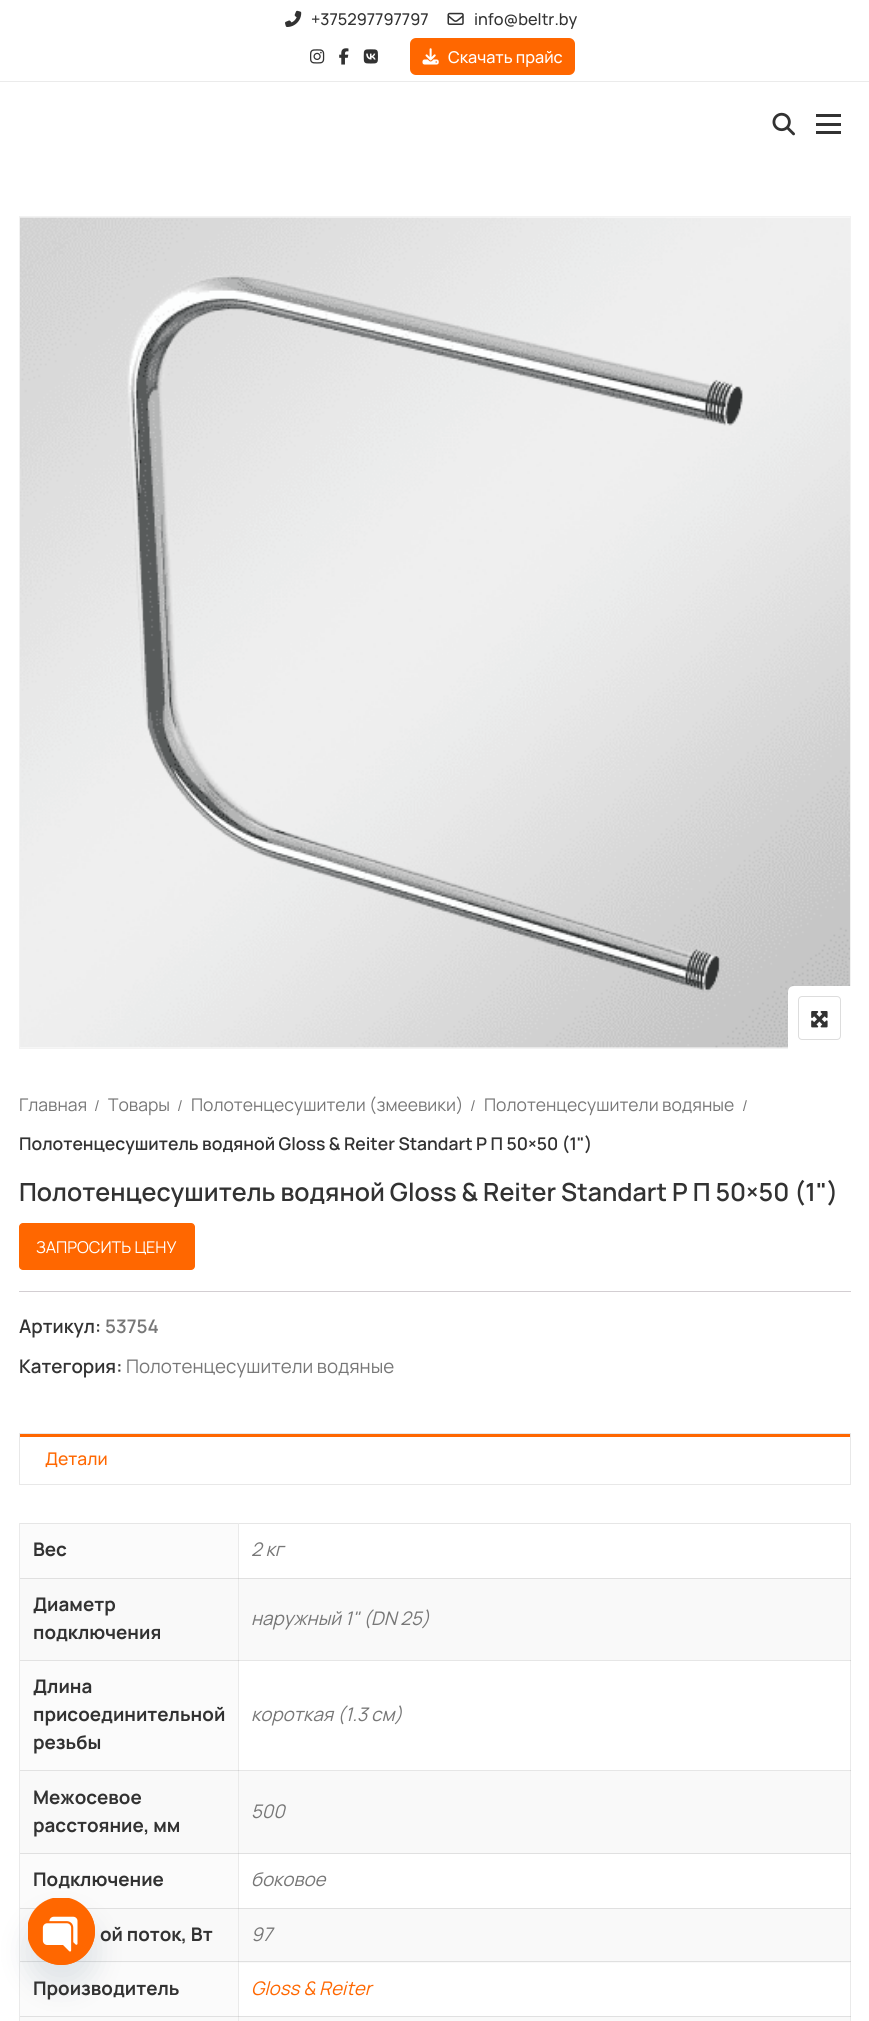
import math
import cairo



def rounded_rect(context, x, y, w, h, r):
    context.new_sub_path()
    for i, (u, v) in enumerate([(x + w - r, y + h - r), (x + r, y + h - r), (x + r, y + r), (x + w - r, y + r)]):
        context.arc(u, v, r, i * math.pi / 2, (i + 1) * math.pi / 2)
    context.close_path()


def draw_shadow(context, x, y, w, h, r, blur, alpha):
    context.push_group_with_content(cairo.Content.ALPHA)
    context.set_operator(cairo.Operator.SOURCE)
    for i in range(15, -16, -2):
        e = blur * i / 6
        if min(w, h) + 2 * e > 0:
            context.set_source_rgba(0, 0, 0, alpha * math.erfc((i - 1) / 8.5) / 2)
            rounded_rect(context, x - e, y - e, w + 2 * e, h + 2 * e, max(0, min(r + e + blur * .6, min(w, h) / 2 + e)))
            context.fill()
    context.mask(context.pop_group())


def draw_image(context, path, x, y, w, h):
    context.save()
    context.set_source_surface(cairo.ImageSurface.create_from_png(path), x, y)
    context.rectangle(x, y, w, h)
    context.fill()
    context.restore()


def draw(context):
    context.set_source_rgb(1, 1, 1)
    context.paint()
    context.set_source_rgb(230 / 255, 230 / 255, 230 / 255)
    context.rectangle(238, 1660, 613, 1)
    context.fill()
    context.rectangle(238, 1770, 613, 1)
    context.fill()
    context.set_source_rgb(235 / 255, 235 / 255, 235 / 255)
    context.rectangle(0, 81, 869, 1)
    context.fill()
    draw_image(context, "images/1.png", 285, 10, 17, 17)
    draw_image(context, "images/2.png", 447, 12, 17, 13)
    draw_image(context, "images/3.png", 310, 49, 15, 15)
    draw_image(context, "images/4.png", 339, 48, 10, 17)
    draw_image(context, "images/5.png", 363, 49, 15, 15)
    context.set_source_rgb(1, 103 / 255, 0)
    rounded_rect(context, 410, 38, 165, 37, 6)
    context.fill()
    draw_image(context, "images/6.png", 422, 48, 17, 17)
    draw_image(context, "images/7.png", 772, 112, 23, 24)
    context.set_source_rgb(50 / 255, 50 / 255, 50 / 255)
    context.rectangle(816, 123, 25, 3)
    context.fill()
    context.rectangle(816, 114, 25, 3)
    context.fill()
    context.rectangle(816, 131, 25, 3)
    context.fill()
    context.rectangle(19.5, 216.5, 831, 832)
    context.set_source_rgb(242 / 255, 242 / 255, 242 / 255)
    context.set_line_width(1)
    context.stroke()
    draw_image(context, "images/8.png", 20, 217, 830, 831)
    context.set_source_rgb(1, 1, 1)
    context.new_path()
    context.move_to(794, 986)
    context.line_to(851, 986)
    context.line_to(851, 1050)
    context.line_to(788, 1050)
    context.line_to(788, 992)
    context.curve_to(788, 988.5, 790.5, 986, 794, 986)
    context.close_path()
    context.fill()
    rounded_rect(context, 798.5, 996.5, 42, 43, 3.5)
    context.set_source_rgb(221 / 255, 221 / 255, 221 / 255)
    context.stroke()
    draw_image(context, "images/9.png", 811, 1011, 17, 17)
    context.set_source_rgb(1, 103 / 255, 0)
    rounded_rect(context, 19, 1223, 176, 47, 4)
    context.fill()
    context.set_source_rgb(211 / 255, 206 / 255, 210 / 255)
    context.rectangle(19, 1291, 832, 1)
    context.fill()
    context.set_source_rgb(232 / 255, 232 / 255, 232 / 255)
    context.rectangle(19, 1433, 832, 1)
    context.fill()
    context.rectangle(850, 1433, 1, 52)
    context.fill()
    context.rectangle(19, 1433, 1, 52)
    context.fill()
    context.rectangle(20, 1484, 830, 1)
    context.fill()
    context.set_source_rgb(1, 103 / 255, 0)
    context.rectangle(20, 1434, 830, 3)
    context.fill()
    context.set_source_rgb(230 / 255, 230 / 255, 230 / 255)
    context.rectangle(19, 1523, 832, 1)
    context.fill()
    context.set_source_rgb(249 / 255, 249 / 255, 249 / 255)
    context.rectangle(20, 2017, 831, 4)
    context.fill()
    context.set_source_rgb(224 / 255, 224 / 255, 224 / 255)
    context.rectangle(20, 2016, 831, 1)
    context.fill()
    context.set_source_rgb(234 / 255, 234 / 255, 234 / 255)
    context.rectangle(19, 1523, 1, 498)
    context.fill()
    context.set_source_rgb(224 / 255, 224 / 255, 224 / 255)
    context.rectangle(20, 1578, 831, 1)
    context.fill()
    context.rectangle(20, 1853, 831, 1)
    context.fill()
    context.rectangle(20, 1908, 831, 1)
    context.fill()
    context.set_source_rgb(249 / 255, 249 / 255, 249 / 255)
    context.rectangle(239, 1909, 611, 54)
    context.fill()
    context.set_source_rgb(224 / 255, 224 / 255, 224 / 255)
    context.rectangle(238, 1961, 613, 1)
    context.fill()
    context.set_source_rgb(234 / 255, 234 / 255, 234 / 255)
    context.rectangle(850, 1523, 1, 498)
    context.fill()
    context.rectangle(238, 1523, 1, 498)
    context.fill()
    context.set_source_rgb(251 / 255, 251 / 255, 251 / 255)
    context.rectangle(20, 1524, 218, 54)
    context.fill()
    context.set_source_rgb(211 / 255, 211 / 255, 211 / 255)
    context.rectangle(850, 1578, 1, 1)
    context.fill()
    context.rectangle(238, 1578, 1, 1)
    context.fill()
    context.set_source_rgb(249 / 255, 249 / 255, 249 / 255)
    context.rectangle(20, 1579, 218, 81)
    context.fill()
    context.rectangle(239, 1579, 611, 81)
    context.fill()
    context.set_source_rgb(211 / 255, 211 / 255, 211 / 255)
    context.rectangle(850, 1660, 1, 1)
    context.fill()
    context.rectangle(238, 1660, 1, 1)
    context.fill()
    context.set_source_rgb(251 / 255, 251 / 255, 251 / 255)
    context.rectangle(20, 1661, 218, 109)
    context.fill()
    context.set_source_rgb(226 / 255, 226 / 255, 226 / 255)
    context.rectangle(20, 1660, 218, 1)
    context.fill()
    context.rectangle(20, 1770, 218, 1)
    context.fill()
    context.set_source_rgb(211 / 255, 211 / 255, 211 / 255)
    context.rectangle(850, 1770, 1, 1)
    context.fill()
    context.rectangle(238, 1770, 1, 1)
    context.fill()
    context.set_source_rgb(249 / 255, 249 / 255, 249 / 255)
    context.rectangle(20, 1771, 218, 82)
    context.fill()
    context.rectangle(239, 1771, 611, 82)
    context.fill()
    context.set_source_rgb(211 / 255, 211 / 255, 211 / 255)
    context.rectangle(850, 1853, 1, 1)
    context.fill()
    context.rectangle(238, 1853, 1, 1)
    context.fill()
    context.set_source_rgb(251 / 255, 251 / 255, 251 / 255)
    context.rectangle(20, 1854, 218, 54)
    context.fill()
    context.set_source_rgb(211 / 255, 211 / 255, 211 / 255)
    context.rectangle(850, 1908, 1, 1)
    context.fill()
    context.rectangle(238, 1908, 1, 1)
    context.fill()
    context.set_source_rgb(249 / 255, 249 / 255, 249 / 255)
    context.rectangle(20, 1909, 218, 54)
    context.fill()
    context.set_source_rgb(224 / 255, 224 / 255, 224 / 255)
    context.rectangle(20, 1961, 218, 1)
    context.fill()
    context.set_source_rgb(211 / 255, 211 / 255, 211 / 255)
    context.rectangle(850, 1961, 1, 1)
    context.fill()
    context.rectangle(238, 1961, 1, 1)
    context.fill()
    context.set_source_rgb(251 / 255, 251 / 255, 251 / 255)
    context.rectangle(20, 1963, 218, 53)
    context.fill()
    context.set_source_rgb(211 / 255, 211 / 255, 211 / 255)
    context.rectangle(850, 2016, 1, 1)
    context.fill()
    context.rectangle(238, 2016, 1, 1)
    context.fill()
    context.set_source_rgb(73 / 255, 104 / 255, 126 / 255)
    draw_shadow(context, 28, 1918, 67, 67, 33.5, 15, 0.16)
    context.set_source_rgb(1, 103 / 255, 0)
    context.arc(61.5, 1931.5, 33.5, 0, 2 * math.pi)
    context.fill()
    draw_image(context, "images/10.png", 28, 1898, 67, 67)
    context.select_font_face("Manrope Medium")
    context.set_font_size(16.25)
    context.set_source_rgb(50 / 255, 50 / 255, 50 / 255)
    context.move_to(311, 25)
    context.show_text("+375297797797")
    context.move_to(474, 25)
    context.show_text("info@beltr.by")
    context.set_source_rgb(1, 1, 1)
    context.move_to(448, 63)
    context.show_text("Скачать прайс")
    context.select_font_face("Manrope")
    context.set_font_size(17.5)
    context.set_source_rgb(119 / 255, 119 / 255, 119 / 255)
    context.move_to(19, 1111)
    context.show_text("Главная")
    context.set_font_size(15)
    context.move_to(94, 1111)
    context.show_text("/")
    context.set_font_size(17.5)
    context.move_to(108, 1111)
    context.show_text("Товары")
    context.set_font_size(15)
    context.move_to(177, 1111)
    context.show_text("/")
    context.set_font_size(17.5)
    context.move_to(191, 1111)
    context.show_text("Полотенцесушители (змеевики)")
    context.set_font_size(15)
    context.move_to(470, 1111)
    context.show_text("/")
    context.set_font_size(17.5)
    context.move_to(484, 1111)
    context.show_text("Полотенцесушители водяные")
    context.set_font_size(15)
    context.move_to(742, 1111)
    context.show_text("/")
    context.select_font_face("Manrope SemiBold")
    context.set_font_size(17.5)
    context.set_source_rgb(50 / 255, 50 / 255, 50 / 255)
    context.move_to(19, 1150)
    context.show_text("Полотенцесушитель водяной Gloss & Reiter Standart P П 50×50 (1\")")
    context.set_font_size(25)
    context.move_to(19, 1201)
    context.show_text("Полотенцесушитель водяной Gloss & Reiter Standart P П 50×50 (1\")")
    context.select_font_face("Manrope")
    context.set_font_size(16.25)
    context.set_source_rgb(1, 1, 1)
    context.move_to(36, 1253)
    context.show_text("ЗАПРОСИТЬ ЦЕНУ")
    context.select_font_face("Manrope SemiBold")
    context.set_font_size(18.75)
    context.set_source_rgb(50 / 255, 50 / 255, 50 / 255)
    context.move_to(19, 1333)
    context.show_text("Артикул:")
    context.set_source_rgb(119 / 255, 119 / 255, 119 / 255)
    context.move_to(105, 1333)
    context.show_text("53754")
    context.set_source_rgb(50 / 255, 50 / 255, 50 / 255)
    context.move_to(19, 1373)
    context.show_text("Категория:")
    context.select_font_face("Manrope")
    context.set_source_rgb(119 / 255, 119 / 255, 119 / 255)
    context.move_to(126, 1373)
    context.show_text("Полотенцесушители водяные")
    context.select_font_face("Manrope Medium")
    context.set_font_size(17.5)
    context.set_source_rgb(1, 103 / 255, 0)
    context.move_to(45, 1465)
    context.show_text("Детали")
    context.select_font_face("Manrope", cairo.FontSlant.NORMAL, cairo.FontWeight.BOLD)
    context.set_font_size(18.75)
    context.set_source_rgb(50 / 255, 50 / 255, 50 / 255)
    context.move_to(33, 1556)
    context.show_text("Вес")
    context.select_font_face("Manrope", cairo.FontSlant.ITALIC)
    context.set_source_rgb(119 / 255, 119 / 255, 119 / 255)
    context.move_to(251, 1556)
    context.show_text("2 кг")
    context.select_font_face("Manrope", cairo.FontSlant.NORMAL, cairo.FontWeight.BOLD)
    context.set_source_rgb(50 / 255, 50 / 255, 50 / 255)
    context.move_to(33, 1611)
    context.show_text("Диаметр")
    context.move_to(33, 1639)
    context.show_text("подключения")
    context.select_font_face("Manrope", cairo.FontSlant.ITALIC)
    context.set_source_rgb(119 / 255, 119 / 255, 119 / 255)
    context.move_to(251, 1625)
    context.show_text("наружный 1\" (DN 25)")
    context.select_font_face("Manrope", cairo.FontSlant.NORMAL, cairo.FontWeight.BOLD)
    context.set_source_rgb(50 / 255, 50 / 255, 50 / 255)
    context.move_to(33, 1693)
    context.show_text("Длина")
    context.move_to(33, 1721)
    context.show_text("присоединительной")
    context.move_to(33, 1749)
    context.show_text("резьбы")
    context.select_font_face("Manrope", cairo.FontSlant.ITALIC)
    context.set_source_rgb(119 / 255, 119 / 255, 119 / 255)
    context.move_to(251, 1721)
    context.show_text("короткая (1.3 см)")
    context.select_font_face("Manrope", cairo.FontSlant.NORMAL, cairo.FontWeight.BOLD)
    context.set_source_rgb(50 / 255, 50 / 255, 50 / 255)
    context.move_to(33, 1804)
    context.show_text("Межосевое")
    context.move_to(33, 1832)
    context.show_text("расстояние, мм")
    context.select_font_face("Manrope", cairo.FontSlant.ITALIC)
    context.set_source_rgb(119 / 255, 119 / 255, 119 / 255)
    context.move_to(251, 1818)
    context.show_text("500")
    context.select_font_face("Manrope", cairo.FontSlant.NORMAL, cairo.FontWeight.BOLD)
    context.set_source_rgb(50 / 255, 50 / 255, 50 / 255)
    context.move_to(33, 1886)
    context.show_text("Подключение")
    context.select_font_face("Manrope", cairo.FontSlant.ITALIC)
    context.set_source_rgb(119 / 255, 119 / 255, 119 / 255)
    context.move_to(251, 1886)
    context.show_text("боковое")
    context.select_font_face("Manrope", cairo.FontSlant.NORMAL, cairo.FontWeight.BOLD)
    context.set_source_rgb(50 / 255, 50 / 255, 50 / 255)
    context.move_to(100, 1941)
    context.show_text("ой поток, Вт")
    context.select_font_face("Manrope", cairo.FontSlant.ITALIC)
    context.set_source_rgb(119 / 255, 119 / 255, 119 / 255)
    context.move_to(251, 1941)
    context.show_text("97")
    context.select_font_face("Manrope", cairo.FontSlant.NORMAL, cairo.FontWeight.BOLD)
    context.set_source_rgb(50 / 255, 50 / 255, 50 / 255)
    context.move_to(33, 1995)
    context.show_text("Производитель")
    context.select_font_face("Manrope", cairo.FontSlant.ITALIC)
    context.set_source_rgb(1, 103 / 255, 0)
    context.move_to(251, 1995)
    context.show_text("Gloss & Reiter")


surface = cairo.ImageSurface(cairo.Format.RGB24, 869, 2021)
context = cairo.Context(surface)
options = cairo.FontOptions()
options.set_hint_metrics(cairo.HintMetrics.OFF)
options.set_hint_style(cairo.HintStyle.NONE)
context.set_font_options(options)
context.set_miter_limit(4)
draw(context)
surface.write_to_png("out.png")
